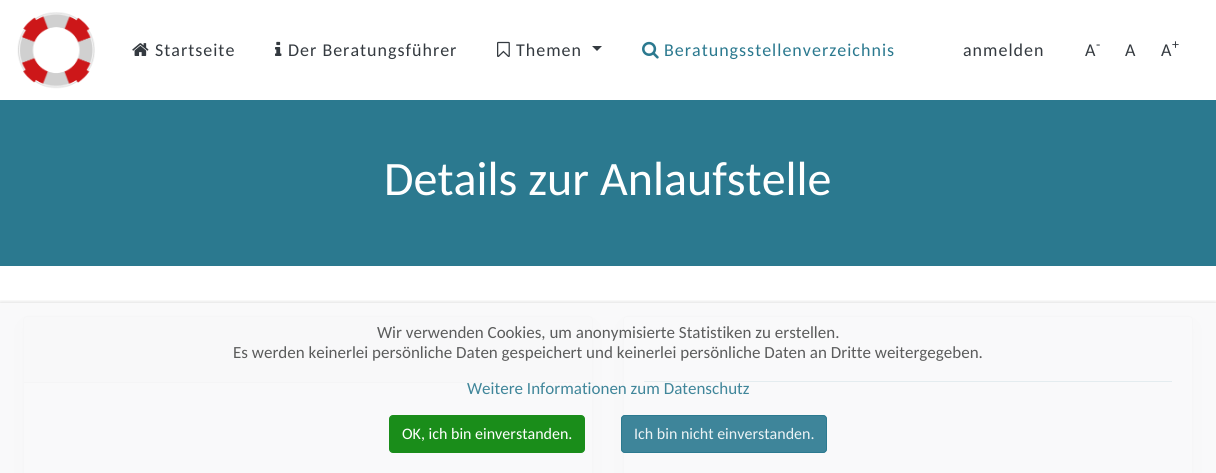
import math
import cairo



def draw_spaced(context, x, y, s, letter, word):
    context.move_to(x, y)
    for ch in s:
        context.show_text(ch)
        context.rel_move_to(letter + word * (ch == ' '), 0)


def rounded_rect(context, x, y, w, h, r):
    context.new_sub_path()
    for i, (u, v) in enumerate([(x + w - r, y + h - r), (x + r, y + h - r), (x + r, y + r), (x + w - r, y + r)]):
        context.arc(u, v, r, i * math.pi / 2, (i + 1) * math.pi / 2)
    context.close_path()


def draw_shadow(context, x, y, w, h, r, blur, alpha):
    context.push_group_with_content(cairo.Content.ALPHA)
    context.set_operator(cairo.Operator.SOURCE)
    for i in range(15, -16, -2):
        e = blur * i / 6
        if min(w, h) + 2 * e > 0:
            context.set_source_rgba(0, 0, 0, alpha * math.erfc((i - 1) / 8.5) / 2)
            rounded_rect(context, x - e, y - e, w + 2 * e, h + 2 * e, max(0, min(r + e + blur * .6, min(w, h) / 2 + e)))
            context.fill()
    context.mask(context.pop_group())


def draw_image(context, path, x, y, w, h):
    context.save()
    context.set_source_surface(cairo.ImageSurface.create_from_png(path), x, y)
    context.rectangle(x, y, w, h)
    context.fill()
    context.restore()


def draw(context):
    context.set_source_rgb(1, 1, 1)
    context.paint()
    draw_image(context, "images/1.png", 17, 12, 78, 77)
    draw_image(context, "images/2.png", 132, 43, 17, 13)
    draw_image(context, "images/3.png", 275, 41, 7, 15)
    draw_image(context, "images/4.png", 497, 41, 13, 16)
    context.set_source_rgb(52 / 255, 58 / 255, 64 / 255)
    context.new_path()
    context.move_to(592, 46)
    context.line_to(602, 46)
    context.line_to(597, 51)
    context.close_path()
    context.fill()
    draw_image(context, "images/5.png", 642, 41, 17, 18)
    context.set_source_rgb(43 / 255, 121 / 255, 143 / 255)
    context.rectangle(0, 100, 1216, 166)
    context.fill()
    context.save()
    context.set_fill_rule(cairo.FillRule.EVEN_ODD)
    context.new_path()
    context.move_to(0, 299)
    context.line_to(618, 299)
    context.line_to(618, 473)
    context.line_to(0, 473)
    context.close_path()
    context.move_to(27, 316)
    context.line_to(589, 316)
    context.curve_to(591, 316, 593, 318, 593, 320)
    context.line_to(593, 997)
    context.curve_to(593, 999, 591, 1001, 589, 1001)
    context.line_to(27, 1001)
    context.curve_to(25, 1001, 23, 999, 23, 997)
    context.line_to(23, 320)
    context.curve_to(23, 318, 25, 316, 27, 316)
    context.close_path()
    context.clip()
    context.set_source_rgb(0, 0, 0)
    draw_shadow(context, 23, 324, 570, 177, 4, 8, 0.15)
    context.restore()
    rounded_rect(context, 23.5, 316.5, 569, 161, 3.5)
    context.set_source_rgb(223 / 255, 223 / 255, 223 / 255)
    context.set_line_width(1)
    context.stroke()
    context.set_source_rgba(0, 0, 0, 0.03)
    context.rectangle(24, 317, 568, 65)
    context.fill()
    context.set_source_rgb(216 / 255, 216 / 255, 216 / 255)
    context.rectangle(24, 382, 568, 1)
    context.fill()
    context.save()
    context.set_fill_rule(cairo.FillRule.EVEN_ODD)
    context.new_path()
    context.move_to(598, 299)
    context.line_to(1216, 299)
    context.line_to(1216, 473)
    context.line_to(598, 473)
    context.close_path()
    context.move_to(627, 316)
    context.line_to(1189, 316)
    context.curve_to(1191, 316, 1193, 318, 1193, 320)
    context.line_to(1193, 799)
    context.curve_to(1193, 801, 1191, 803, 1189, 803)
    context.line_to(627, 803)
    context.curve_to(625, 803, 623, 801, 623, 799)
    context.line_to(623, 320)
    context.curve_to(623, 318, 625, 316, 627, 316)
    context.close_path()
    context.clip()
    context.set_source_rgb(0, 0, 0)
    draw_shadow(context, 623, 324, 570, 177, 4, 8, 0.15)
    context.restore()
    rounded_rect(context, 623.5, 316.5, 569, 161, 3.5)
    context.set_source_rgb(223 / 255, 223 / 255, 223 / 255)
    context.stroke()
    context.set_source_rgb(43 / 255, 121 / 255, 143 / 255)
    context.rectangle(644, 381, 528, 1)
    context.fill()
    context.save()
    context.rectangle(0, 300, 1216, 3)
    context.clip()
    context.set_source_rgb(25 / 255, 25 / 255, 25 / 255)
    draw_shadow(context, 0, 303, 1216, 170, 0, 2.5, 0.2)
    context.restore()
    context.set_source_rgba(248 / 255, 249 / 255, 250 / 255, 0.9)
    context.rectangle(0, 303, 1216, 170)
    context.fill()
    context.set_source_rgb(26 / 255, 141 / 255, 26 / 255)
    rounded_rect(context, 389.5, 415.5, 195, 37, 3.5)
    context.fill_preserve()
    context.stroke()
    context.set_source_rgba(43 / 255, 121 / 255, 143 / 255, 0.9)
    rounded_rect(context, 621, 415, 206, 38, 4)
    context.fill()
    rounded_rect(context, 621.5, 415.5, 205, 37, 3.5)
    context.stroke()
    context.select_font_face("Carlito")
    context.set_font_size(18)
    context.set_source_rgb(52 / 255, 58 / 255, 64 / 255)
    draw_spaced(context, 155, 56, "Startseite", 1, 0)
    draw_spaced(context, 288, 56, "Der Beratungsführer", 1, 0)
    draw_spaced(context, 516, 56, "Themen", 1, 0)
    context.set_source_rgb(43 / 255, 121 / 255, 143 / 255)
    draw_spaced(context, 664, 56, "Beratungsstellenverzeichnis", 1, 0)
    context.set_source_rgb(52 / 255, 58 / 255, 64 / 255)
    draw_spaced(context, 963, 56, "anmelden", 1, 0)
    draw_spaced(context, 1085, 56, "A", 1, 0)
    context.set_font_size(14)
    draw_spaced(context, 1096, 49, "-", 1, 0)
    context.set_font_size(18)
    draw_spaced(context, 1125, 56, "A", 1, 0)
    draw_spaced(context, 1161, 56, "A", 1, 0)
    context.set_font_size(14)
    draw_spaced(context, 1172, 49, "+", 1, 0)
    context.set_font_size(48)
    context.set_source_rgb(1, 1, 1)
    context.move_to(384, 195)
    context.show_text("Details zur Anlaufstelle")
    context.set_font_size(17)
    context.set_source_rgb(91 / 255, 92 / 255, 92 / 255)
    context.move_to(377, 338)
    context.show_text("Wir verwenden Cookies, um anonymisierte Statistiken zu erstellen.")
    context.move_to(233, 358)
    context.show_text("Es werden keinerlei persönliche Daten gespeichert und keinerlei persönliche Daten an Dritte weitergegeben.")
    context.set_source_rgb(64 / 255, 134 / 255, 154 / 255)
    context.move_to(467, 394)
    context.show_text("Weitere Informationen zum Datenschutz")
    context.set_font_size(16)
    context.set_source_rgb(1, 1, 1)
    context.move_to(402, 439)
    context.show_text("OK, ich bin einverstanden.")
    context.set_source_rgb(236 / 255, 243 / 255, 245 / 255)
    context.move_to(634, 439)
    context.show_text("Ich bin nicht einverstanden.")


surface = cairo.ImageSurface(cairo.Format.RGB24, 1216, 473)
context = cairo.Context(surface)
options = cairo.FontOptions()
options.set_hint_metrics(cairo.HintMetrics.OFF)
options.set_hint_style(cairo.HintStyle.NONE)
context.set_font_options(options)
context.set_miter_limit(4)
draw(context)
surface.write_to_png("out.png")
